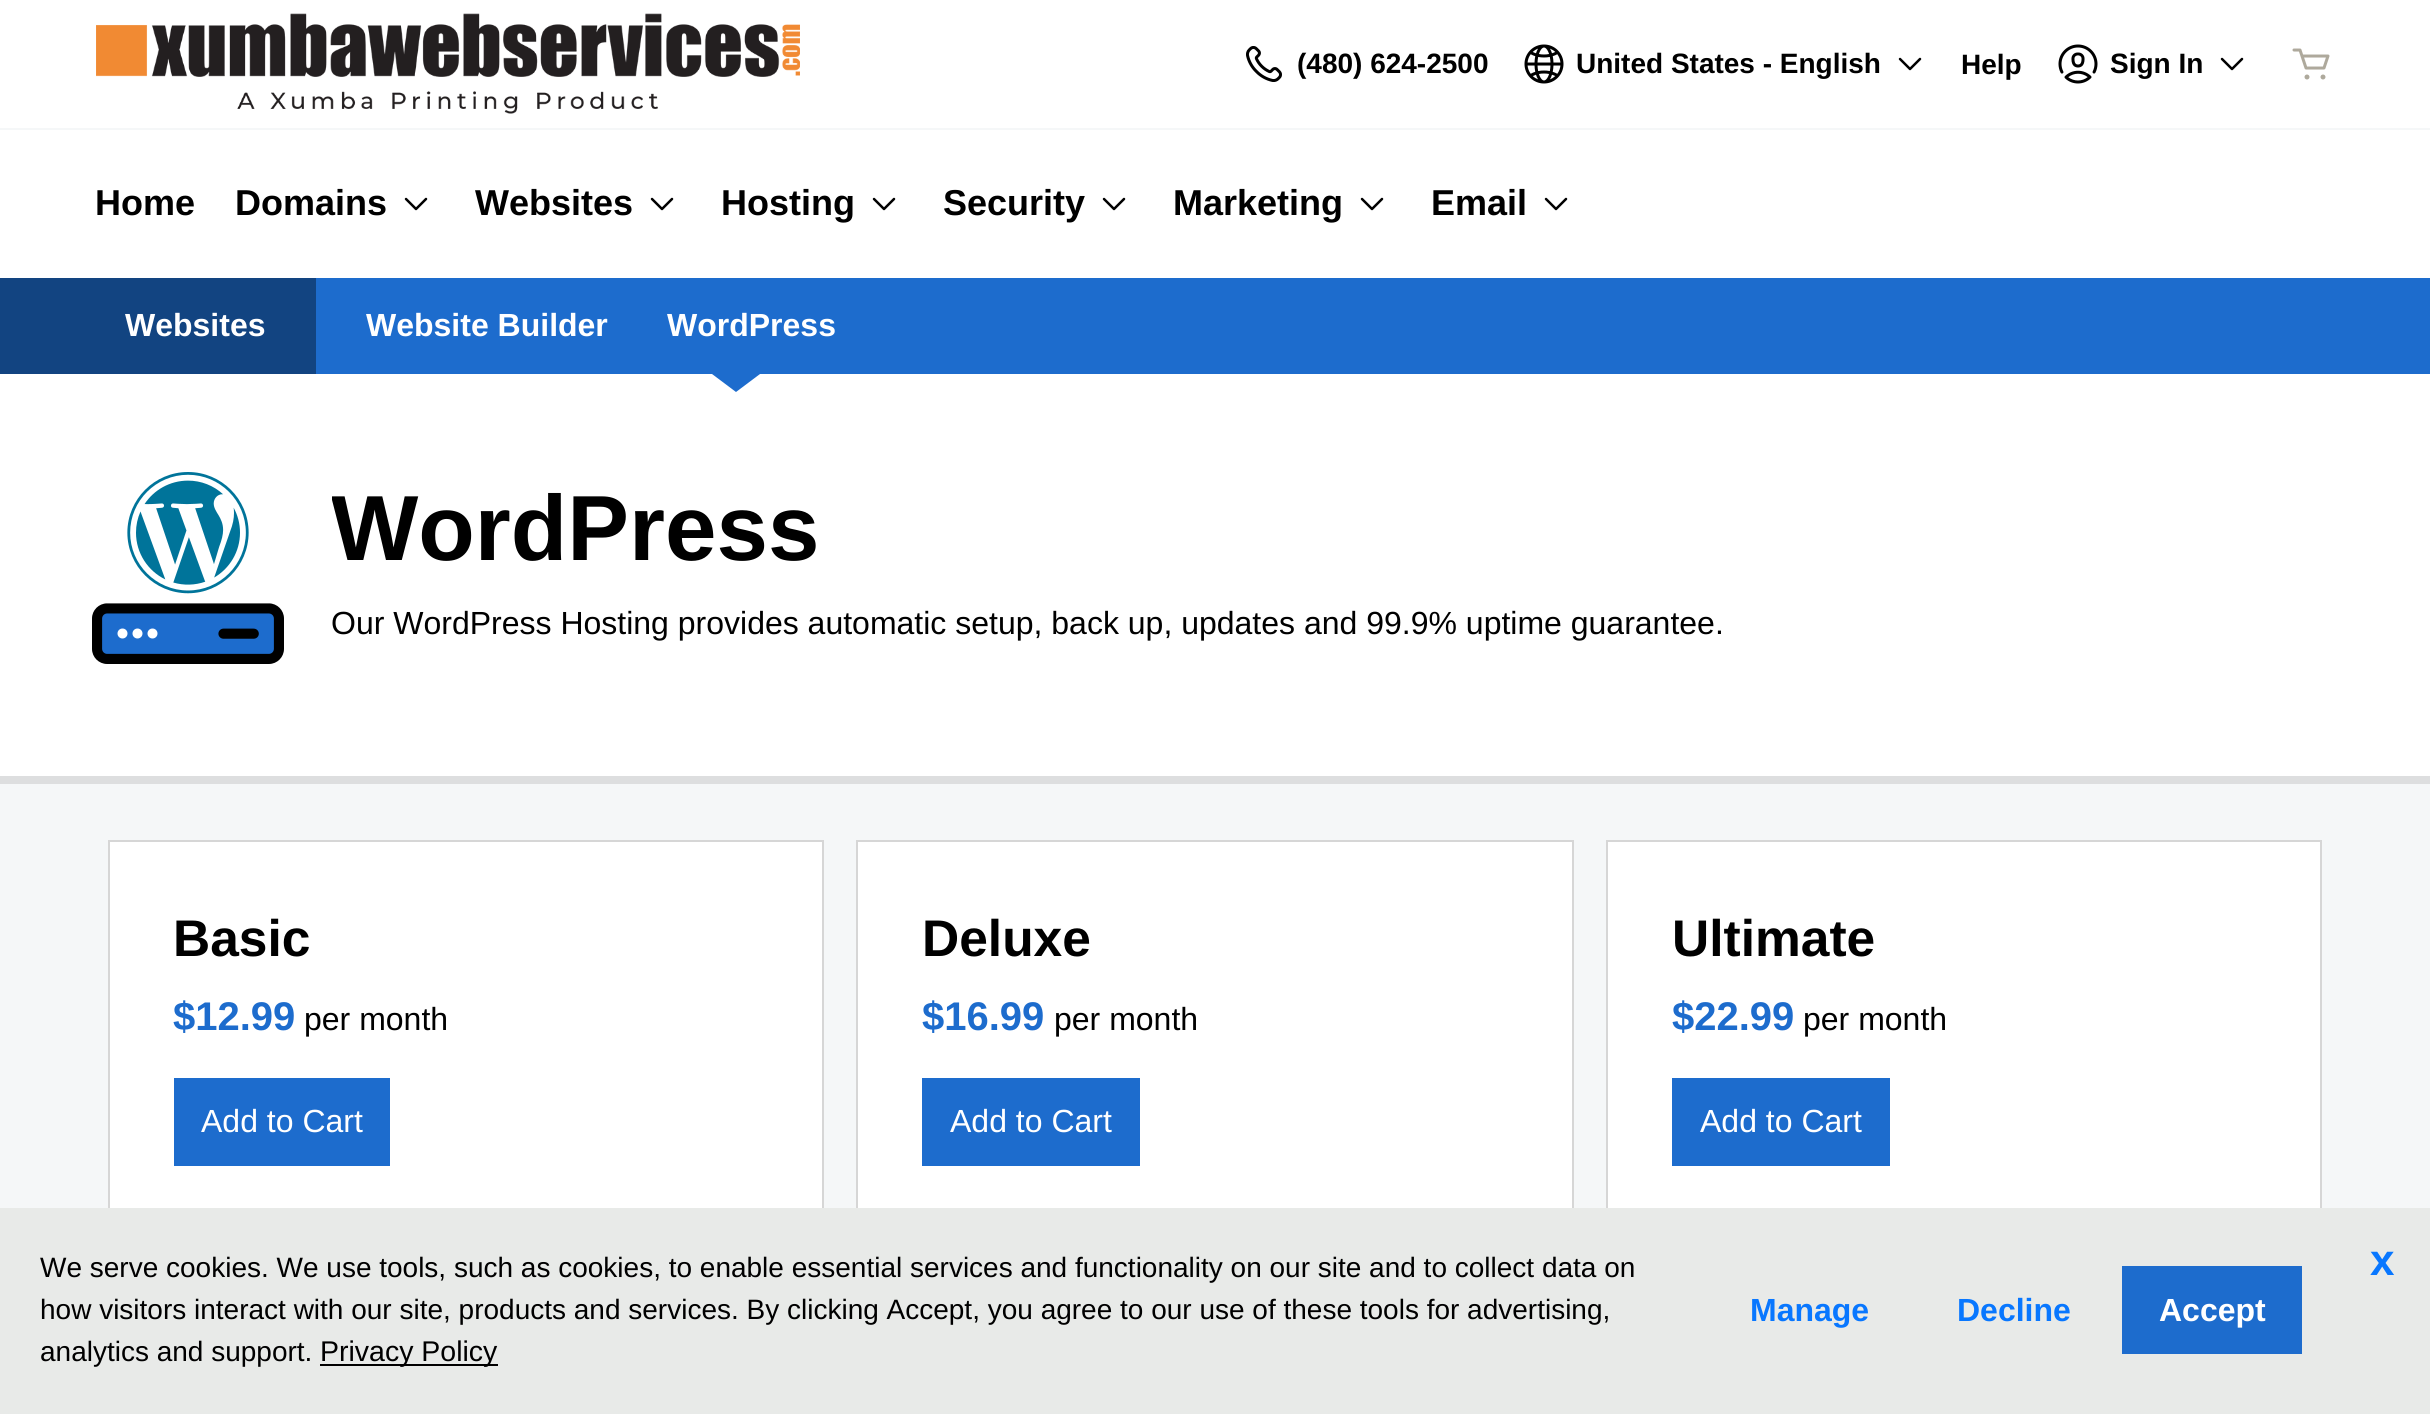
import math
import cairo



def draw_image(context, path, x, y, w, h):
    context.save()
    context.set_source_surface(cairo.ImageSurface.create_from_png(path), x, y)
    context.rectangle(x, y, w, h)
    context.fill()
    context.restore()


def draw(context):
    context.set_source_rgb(245 / 255, 247 / 255, 248 / 255)
    context.paint()
    context.set_source_rgb(1, 1, 1)
    context.rectangle(0, 0, 2430, 128)
    context.fill()
    draw_image(context, "images/1.png", 96, 13, 704, 101)
    draw_image(context, "images/2.png", 1246, 46, 36, 36)
    draw_image(context, "images/3.png", 1524, 44, 40, 40)
    draw_image(context, "images/4.png", 1898, 57, 24, 14)
    draw_image(context, "images/5.png", 2058, 44, 40, 40)
    draw_image(context, "images/4.png", 2220, 57, 24, 14)
    draw_image(context, "images/6.png", 2292, 48, 38, 32)
    context.rectangle(0, 130, 2430, 148)
    context.fill()
    draw_image(context, "images/4.png", 404, 197, 24, 14)
    draw_image(context, "images/4.png", 650, 197, 24, 14)
    draw_image(context, "images/4.png", 872, 197, 24, 14)
    draw_image(context, "images/4.png", 1102, 197, 24, 14)
    draw_image(context, "images/4.png", 1360, 197, 24, 14)
    draw_image(context, "images/4.png", 1544, 197, 24, 14)
    context.set_source_rgb(29 / 255, 108 / 255, 205 / 255)
    context.rectangle(316, 278, 2114, 96)
    context.fill()
    context.set_source_rgb(18 / 255, 68 / 255, 129 / 255)
    context.rectangle(0, 278, 316, 96)
    context.fill()
    context.set_source_rgb(1, 1, 1)
    context.rectangle(0, 374, 2430, 402)
    context.fill()
    context.set_source_rgb(29 / 255, 108 / 255, 205 / 255)
    context.new_path()
    context.move_to(712, 374)
    context.line_to(760, 374)
    context.line_to(736, 392)
    context.close_path()
    context.fill()
    context.set_source_rgb(221 / 255, 222 / 255, 223 / 255)
    context.rectangle(0, 776, 2430, 8)
    context.fill()
    draw_image(context, "images/7.png", 92, 472, 192, 192)
    context.set_source_rgb(1, 1, 1)
    context.rectangle(110, 842, 712, 366)
    context.fill()
    context.rectangle(109, 841, 714, 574)
    context.set_source_rgb(214 / 255, 214 / 255, 214 / 255)
    context.stroke()
    context.set_source_rgb(29 / 255, 108 / 255, 205 / 255)
    context.rectangle(174, 1078, 216, 88)
    context.fill()
    context.set_source_rgb(1, 1, 1)
    context.rectangle(858, 842, 714, 366)
    context.fill()
    context.rectangle(857, 841, 716, 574)
    context.set_source_rgb(214 / 255, 214 / 255, 214 / 255)
    context.stroke()
    context.set_source_rgb(29 / 255, 108 / 255, 205 / 255)
    context.rectangle(922, 1078, 218, 88)
    context.fill()
    context.set_source_rgb(1, 1, 1)
    context.rectangle(1608, 842, 712, 366)
    context.fill()
    context.rectangle(1607, 841, 714, 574)
    context.set_source_rgb(214 / 255, 214 / 255, 214 / 255)
    context.stroke()
    context.set_source_rgb(29 / 255, 108 / 255, 205 / 255)
    context.rectangle(1672, 1078, 218, 88)
    context.fill()
    context.set_source_rgb(232 / 255, 234 / 255, 232 / 255)
    context.rectangle(0, 1208, 2430, 206)
    context.fill()
    context.set_source_rgb(0, 0, 0)
    context.rectangle(320, 1364, 178, 2)
    context.fill()
    context.set_source_rgb(29 / 255, 108 / 255, 205 / 255)
    context.rectangle(2122, 1266, 180, 88)
    context.fill()
    context.select_font_face("Liberation Sans", cairo.FontSlant.NORMAL, cairo.FontWeight.BOLD)
    context.set_font_size(28)
    context.set_source_rgb(0, 0, 0)
    context.move_to(1297, 73)
    context.show_text("(480) 624-2500")
    context.move_to(1576, 73)
    context.show_text("United States - English")
    context.move_to(1961, 74)
    context.show_text("Help")
    context.move_to(2110, 73)
    context.show_text("Sign In")
    context.set_font_size(36)
    context.move_to(95, 215)
    context.show_text("Home")
    context.move_to(235, 215)
    context.show_text("Domains")
    context.move_to(475, 215)
    context.show_text("Websites")
    context.move_to(721, 215)
    context.show_text("Hosting")
    context.move_to(943, 215)
    context.show_text("Security")
    context.move_to(1173, 215)
    context.show_text("Marketing")
    context.move_to(1431, 215)
    context.show_text("Email")
    context.set_font_size(32)
    context.set_source_rgb(1, 1, 1)
    context.move_to(125, 336)
    context.show_text("Websites")
    context.move_to(366, 336)
    context.show_text("Website Builder")
    context.move_to(667, 336)
    context.show_text("WordPress")
    context.save()
    context.rectangle(332, 472, 2008, 176)
    context.clip()
    context.set_font_size(92.5)
    context.set_source_rgb(0, 0, 0)
    context.move_to(331, 560)
    context.show_text("WordPress")
    context.restore()
    context.select_font_face("Liberation Sans")
    context.set_source_rgb(0, 0, 0)
    context.move_to(331, 634)
    context.show_text("Our WordPress Hosting provides automatic setup, back up, updates and 99.9% uptime guarantee.")
    context.select_font_face("Liberation Sans", cairo.FontSlant.NORMAL, cairo.FontWeight.BOLD)
    context.set_font_size(51.5)
    context.move_to(173, 956)
    context.show_text("Basic")
    context.set_font_size(40)
    context.set_source_rgb(29 / 255, 108 / 255, 205 / 255)
    context.move_to(173, 1030)
    context.show_text("$12.99")
    context.select_font_face("Liberation Sans")
    context.set_font_size(32)
    context.set_source_rgb(0, 0, 0)
    context.move_to(304, 1030)
    context.show_text("per month")
    context.set_source_rgb(1, 1, 1)
    context.move_to(201, 1132)
    context.show_text("Add to Cart")
    context.select_font_face("Liberation Sans", cairo.FontSlant.NORMAL, cairo.FontWeight.BOLD)
    context.set_font_size(51.5)
    context.set_source_rgb(0, 0, 0)
    context.move_to(922, 956)
    context.show_text("Deluxe")
    context.set_font_size(40)
    context.set_source_rgb(29 / 255, 108 / 255, 205 / 255)
    context.move_to(922, 1030)
    context.show_text("$16.99")
    context.select_font_face("Liberation Sans")
    context.set_font_size(32)
    context.set_source_rgb(0, 0, 0)
    context.move_to(1054, 1030)
    context.show_text("per month")
    context.set_source_rgb(1, 1, 1)
    context.move_to(950, 1132)
    context.show_text("Add to Cart")
    context.select_font_face("Liberation Sans", cairo.FontSlant.NORMAL, cairo.FontWeight.BOLD)
    context.set_font_size(51.5)
    context.set_source_rgb(0, 0, 0)
    context.move_to(1672, 956)
    context.show_text("Ultimate")
    context.set_font_size(40)
    context.set_source_rgb(29 / 255, 108 / 255, 205 / 255)
    context.move_to(1672, 1030)
    context.show_text("$22.99")
    context.select_font_face("Liberation Sans")
    context.set_font_size(32)
    context.set_source_rgb(0, 0, 0)
    context.move_to(1803, 1030)
    context.show_text("per month")
    context.set_source_rgb(1, 1, 1)
    context.move_to(1700, 1132)
    context.show_text("Add to Cart")
    context.set_font_size(28)
    context.set_source_rgb(0, 0, 0)
    context.move_to(40, 1277)
    context.show_text("We serve cookies. We use tools, such as cookies, to enable essential services and functionality on our site and to collect data on")
    context.move_to(40, 1319)
    context.show_text("how visitors interact with our site, products and services. By clicking Accept, you agree to our use of these tools for advertising,")
    context.move_to(40, 1361)
    context.show_text("analytics and support.")
    context.set_font_size(28.5)
    context.move_to(320, 1361)
    context.show_text("Privacy Policy")
    context.select_font_face("Liberation Sans", cairo.FontSlant.NORMAL, cairo.FontWeight.BOLD)
    context.set_font_size(32)
    context.set_source_rgb(8 / 255, 119 / 255, 1)
    context.move_to(1750, 1321)
    context.show_text("Manage")
    context.move_to(1957, 1321)
    context.show_text("Decline")
    context.set_source_rgb(1, 1, 1)
    context.move_to(2159, 1321)
    context.show_text("Accept")
    context.set_font_size(44)
    context.set_source_rgb(8 / 255, 119 / 255, 1)
    context.move_to(2370, 1275)
    context.show_text("x")


surface = cairo.ImageSurface(cairo.Format.RGB24, 2430, 1414)
context = cairo.Context(surface)
options = cairo.FontOptions()
options.set_hint_metrics(cairo.HintMetrics.OFF)
options.set_hint_style(cairo.HintStyle.NONE)
context.set_font_options(options)
context.set_miter_limit(4)
draw(context)
surface.write_to_png("out.png")
